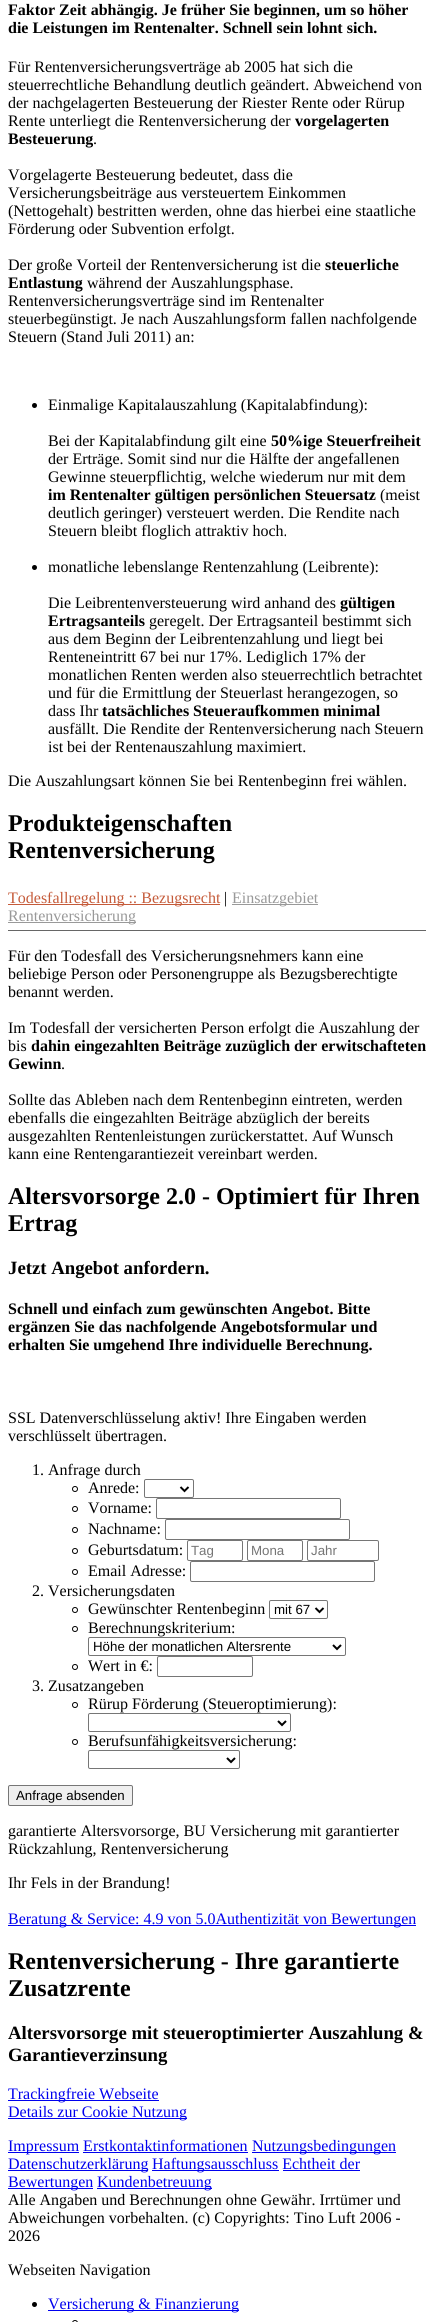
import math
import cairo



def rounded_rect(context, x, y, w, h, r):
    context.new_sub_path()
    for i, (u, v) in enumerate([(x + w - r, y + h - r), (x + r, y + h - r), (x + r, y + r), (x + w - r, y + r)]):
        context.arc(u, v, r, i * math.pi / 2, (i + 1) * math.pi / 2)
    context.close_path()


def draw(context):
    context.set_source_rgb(1, 1, 1)
    context.paint()
    context.set_source_rgb(0, 0, 0)
    context.arc(34.5, 405.5, 2.5, 0, 2 * math.pi)
    context.fill()
    context.arc(34.5, 567.5, 2.5, 0, 2 * math.pi)
    context.fill()
    context.set_source_rgb(102 / 255, 102 / 255, 102 / 255)
    context.rectangle(8, 930, 418, 1)
    context.fill()
    context.set_source_rgb(197 / 255, 91 / 255, 58 / 255)
    context.rectangle(8, 904, 212, 1)
    context.fill()
    context.set_source_rgb(153 / 255, 153 / 255, 153 / 255)
    context.rectangle(232, 904, 86, 1)
    context.fill()
    context.rectangle(8, 922, 128, 1)
    context.fill()
    context.arc(75, 1489, 2.5, 0, 2 * math.pi)
    context.set_source_rgb(0, 0, 0)
    context.set_line_width(1)
    context.stroke()
    rounded_rect(context, 144.5, 1479.5, 49, 18, 1.5)
    context.set_source_rgb(118 / 255, 118 / 255, 118 / 255)
    context.stroke()
    context.new_path()
    context.move_to(180.5, 1487)
    context.line_to(184.5, 1491)
    context.line_to(188.5, 1487)
    context.set_source_rgb(0, 0, 0)
    context.set_line_width(2)
    context.stroke()
    context.arc(75, 1509, 2.5, 0, 2 * math.pi)
    context.set_line_width(1)
    context.stroke()
    rounded_rect(context, 156.5, 1498.5, 184, 20, 1.5)
    context.set_source_rgb(118 / 255, 118 / 255, 118 / 255)
    context.stroke()
    context.arc(75, 1530, 2.5, 0, 2 * math.pi)
    context.set_source_rgb(0, 0, 0)
    context.stroke()
    rounded_rect(context, 165.5, 1519.5, 184, 20, 1.5)
    context.set_source_rgb(118 / 255, 118 / 255, 118 / 255)
    context.stroke()
    context.arc(75, 1551, 2.5, 0, 2 * math.pi)
    context.set_source_rgb(0, 0, 0)
    context.stroke()
    rounded_rect(context, 187.5, 1540.5, 55, 20, 1.5)
    context.set_source_rgb(118 / 255, 118 / 255, 118 / 255)
    context.stroke()
    rounded_rect(context, 247.5, 1540.5, 55, 20, 1.5)
    context.stroke()
    rounded_rect(context, 307.5, 1540.5, 71, 20, 1.5)
    context.stroke()
    context.arc(75, 1572, 2.5, 0, 2 * math.pi)
    context.set_source_rgb(0, 0, 0)
    context.stroke()
    rounded_rect(context, 190.5, 1561.5, 184, 20, 1.5)
    context.set_source_rgb(118 / 255, 118 / 255, 118 / 255)
    context.stroke()
    context.arc(75, 1610, 2.5, 0, 2 * math.pi)
    context.set_source_rgb(0, 0, 0)
    context.stroke()
    rounded_rect(context, 269.5, 1600.5, 58, 18, 1.5)
    context.set_source_rgb(118 / 255, 118 / 255, 118 / 255)
    context.stroke()
    context.new_path()
    context.move_to(315.5, 1608)
    context.line_to(319.5, 1612)
    context.line_to(323.5, 1608)
    context.set_source_rgb(0, 0, 0)
    context.set_line_width(2)
    context.stroke()
    context.arc(75, 1629, 2.5, 0, 2 * math.pi)
    context.set_line_width(1)
    context.stroke()
    rounded_rect(context, 88.5, 1637.5, 257, 18, 1.5)
    context.set_source_rgb(118 / 255, 118 / 255, 118 / 255)
    context.stroke()
    context.new_path()
    context.move_to(333, 1645)
    context.line_to(337, 1649)
    context.line_to(341, 1645)
    context.set_source_rgb(0, 0, 0)
    context.set_line_width(2)
    context.stroke()
    context.arc(75, 1667, 2.5, 0, 2 * math.pi)
    context.set_line_width(1)
    context.stroke()
    rounded_rect(context, 157.5, 1656.5, 95, 20, 1.5)
    context.set_source_rgb(118 / 255, 118 / 255, 118 / 255)
    context.stroke()
    context.arc(75, 1705, 2.5, 0, 2 * math.pi)
    context.set_source_rgb(0, 0, 0)
    context.stroke()
    rounded_rect(context, 88.5, 1713.5, 202, 18, 1.5)
    context.set_source_rgb(118 / 255, 118 / 255, 118 / 255)
    context.stroke()
    context.new_path()
    context.move_to(278, 1721)
    context.line_to(282, 1725)
    context.line_to(286, 1721)
    context.set_source_rgb(0, 0, 0)
    context.set_line_width(2)
    context.stroke()
    context.arc(75, 1742, 2.5, 0, 2 * math.pi)
    context.set_line_width(1)
    context.stroke()
    rounded_rect(context, 88.5, 1750.5, 151, 18, 1.5)
    context.set_source_rgb(118 / 255, 118 / 255, 118 / 255)
    context.stroke()
    context.new_path()
    context.move_to(227, 1758)
    context.line_to(231, 1762)
    context.line_to(235, 1758)
    context.set_source_rgb(0, 0, 0)
    context.set_line_width(2)
    context.stroke()
    context.set_source_rgb(239 / 255, 239 / 255, 239 / 255)
    rounded_rect(context, 8.5, 1785.5, 124, 20, 1.5)
    context.fill_preserve()
    context.set_source_rgb(118 / 255, 118 / 255, 118 / 255)
    context.set_line_width(1)
    context.stroke()
    context.set_source_rgb(0, 0, 238 / 255)
    context.rectangle(8, 1925, 408, 1)
    context.fill()
    context.rectangle(8, 2100, 151, 1)
    context.fill()
    context.rectangle(8, 2118, 179, 1)
    context.fill()
    context.rectangle(8, 2152, 71, 1)
    context.fill()
    context.rectangle(252, 2152, 144, 1)
    context.fill()
    context.rectangle(83, 2152, 165, 1)
    context.fill()
    context.rectangle(8, 2170, 140, 1)
    context.fill()
    context.rectangle(152, 2170, 127, 1)
    context.fill()
    context.rectangle(283, 2170, 77, 1)
    context.fill()
    context.rectangle(8, 2188, 85, 1)
    context.fill()
    context.rectangle(97, 2188, 115, 1)
    context.fill()
    context.set_source_rgb(0, 0, 0)
    context.arc(34.5, 2304.5, 2.5, 0, 2 * math.pi)
    context.fill()
    context.set_source_rgb(0, 0, 238 / 255)
    context.rectangle(48, 2310, 191, 1)
    context.fill()
    context.arc(75, 2323, 2.5, 0, 2 * math.pi)
    context.set_source_rgb(0, 0, 0)
    context.stroke()
    context.select_font_face("Liberation Serif", cairo.FontSlant.NORMAL, cairo.FontWeight.BOLD)
    context.set_font_size(16)
    context.move_to(8, 15)
    context.show_text("Faktor Zeit abhängig. Je früher Sie beginnen, um so höher")
    context.move_to(8, 33)
    context.show_text("die Leistungen im Rentenalter. Schnell sein lohnt sich.")
    context.select_font_face("Liberation Serif")
    context.move_to(8, 72)
    context.show_text("Für Rentenversicherungsverträge ab 2005 hat sich die")
    context.move_to(8, 90)
    context.show_text("steuerrechtliche Behandlung deutlich geändert. Abweichend von")
    context.move_to(8, 108)
    context.show_text("der nachgelagerten Besteuerung der Riester Rente oder Rürup")
    context.move_to(8, 126)
    context.show_text("Rente unterliegt die Rentenversicherung der")
    context.select_font_face("Liberation Serif", cairo.FontSlant.NORMAL, cairo.FontWeight.BOLD)
    context.move_to(295, 126)
    context.show_text("vorgelagerten")
    context.move_to(8, 144)
    context.show_text("Besteuerung")
    context.select_font_face("Liberation Serif")
    context.move_to(93, 144)
    context.show_text(".")
    context.move_to(8, 180)
    context.show_text("Vorgelagerte Besteuerung bedeutet, dass die")
    context.move_to(8, 198)
    context.show_text("Versicherungsbeiträge aus versteuertem Einkommen")
    context.move_to(8, 216)
    context.show_text("(Nettogehalt) bestritten werden, ohne das hierbei eine staatliche")
    context.move_to(8, 234)
    context.show_text("Förderung oder Subvention erfolgt.")
    context.move_to(8, 270)
    context.show_text("Der große Vorteil der Rentenversicherung ist die")
    context.select_font_face("Liberation Serif", cairo.FontSlant.NORMAL, cairo.FontWeight.BOLD)
    context.move_to(325, 270)
    context.show_text("steuerliche")
    context.move_to(8, 288)
    context.show_text("Entlastung")
    context.select_font_face("Liberation Serif")
    context.move_to(87, 288)
    context.show_text("während der Auszahlungsphase.")
    context.move_to(8, 306)
    context.show_text("Rentenversicherungsverträge sind im Rentenalter")
    context.move_to(8, 324)
    context.show_text("steuerbegünstigt. Je nach Auszahlungsform fallen nachfolgende")
    context.move_to(8, 342)
    context.show_text("Steuern (Stand Juli 2011) an:")
    context.move_to(48, 410)
    context.show_text("Einmalige Kapitalauszahlung (Kapitalabfindung):")
    context.move_to(48, 446)
    context.show_text("Bei der Kapitalabfindung gilt eine")
    context.select_font_face("Liberation Serif", cairo.FontSlant.NORMAL, cairo.FontWeight.BOLD)
    context.move_to(271, 446)
    context.show_text("50%ige Steuerfreiheit")
    context.select_font_face("Liberation Serif")
    context.move_to(48, 464)
    context.show_text("der Erträge. Somit sind nur die Hälfte der angefallenen")
    context.move_to(48, 482)
    context.show_text("Gewinne steuerpflichtig, welche wiederum nur mit dem")
    context.select_font_face("Liberation Serif", cairo.FontSlant.NORMAL, cairo.FontWeight.BOLD)
    context.move_to(48, 500)
    context.show_text("im Rentenalter gültigen persönlichen Steuersatz")
    context.select_font_face("Liberation Serif")
    context.move_to(380, 500)
    context.show_text("(meist")
    context.move_to(48, 518)
    context.show_text("deutlich geringer) versteuert werden. Die Rendite nach")
    context.move_to(48, 536)
    context.show_text("Steuern bleibt floglich attraktiv hoch.")
    context.move_to(48, 572)
    context.show_text("monatliche lebenslange Rentenzahlung (Leibrente):")
    context.move_to(48, 608)
    context.show_text("Die Leibrentenversteuerung wird anhand des")
    context.select_font_face("Liberation Serif", cairo.FontSlant.NORMAL, cairo.FontWeight.BOLD)
    context.move_to(340, 608)
    context.show_text("gültigen")
    context.move_to(48, 626)
    context.show_text("Ertragsanteils")
    context.select_font_face("Liberation Serif")
    context.move_to(149, 626)
    context.show_text("geregelt. Der Ertragsanteil bestimmt sich")
    context.move_to(48, 644)
    context.show_text("aus dem Beginn der Leibrentenzahlung und liegt bei")
    context.move_to(48, 662)
    context.show_text("Renteneintritt 67 bei nur 17%. Lediglich 17% der")
    context.move_to(48, 680)
    context.show_text("monatlichen Renten werden also steuerrechtlich betrachtet")
    context.move_to(48, 698)
    context.show_text("und für die Ermittlung der Steuerlast herangezogen, so")
    context.move_to(48, 716)
    context.show_text("dass Ihr")
    context.select_font_face("Liberation Serif", cairo.FontSlant.NORMAL, cairo.FontWeight.BOLD)
    context.move_to(102, 716)
    context.show_text("tatsächliches Steueraufkommen minimal")
    context.select_font_face("Liberation Serif")
    context.move_to(48, 734)
    context.show_text("ausfällt. Die Rendite der Rentenversicherung nach Steuern")
    context.move_to(48, 752)
    context.show_text("ist bei der Rentenauszahlung maximiert.")
    context.move_to(8, 786)
    context.show_text("Die Auszahlungsart können Sie bei Rentenbeginn frei wählen.")
    context.select_font_face("Liberation Serif", cairo.FontSlant.NORMAL, cairo.FontWeight.BOLD)
    context.set_font_size(24)
    context.move_to(8, 831)
    context.show_text("Produkteigenschaften")
    context.move_to(8, 858)
    context.show_text("Rentenversicherung")
    context.select_font_face("Liberation Serif")
    context.set_font_size(16)
    context.set_source_rgb(197 / 255, 91 / 255, 58 / 255)
    context.move_to(8, 903)
    context.show_text("Todesfallregelung :: Bezugsrecht")
    context.set_source_rgb(0, 0, 0)
    context.move_to(224, 903)
    context.show_text("|")
    context.set_source_rgb(153 / 255, 153 / 255, 153 / 255)
    context.move_to(232, 903)
    context.show_text("Einsatzgebiet")
    context.move_to(8, 921)
    context.show_text("Rentenversicherung")
    context.set_source_rgb(0, 0, 0)
    context.move_to(8, 961)
    context.show_text("Für den Todesfall des Versicherungsnehmers kann eine")
    context.move_to(8, 979)
    context.show_text("beliebige Person oder Personengruppe als Bezugsberechtigte")
    context.move_to(8, 997)
    context.show_text("benannt werden.")
    context.move_to(8, 1033)
    context.show_text("Im Todesfall der versicherten Person erfolgt die Auszahlung der")
    context.move_to(8, 1051)
    context.show_text("bis")
    context.select_font_face("Liberation Serif", cairo.FontSlant.NORMAL, cairo.FontWeight.BOLD)
    context.move_to(31, 1051)
    context.show_text("dahin eingezahlten Beiträge zuzüglich der erwitschafteten")
    context.move_to(8, 1069)
    context.show_text("Gewinn")
    context.select_font_face("Liberation Serif")
    context.move_to(61, 1069)
    context.show_text(".")
    context.move_to(8, 1105)
    context.show_text("Sollte das Ableben nach dem Rentenbeginn eintreten, werden")
    context.move_to(8, 1123)
    context.show_text("ebenfalls die eingezahlten Beiträge abzüglich der bereits")
    context.move_to(8, 1141)
    context.show_text("ausgezahlten Rentenleistungen zurückerstattet. Auf Wunsch")
    context.move_to(8, 1159)
    context.show_text("kann eine Rentengarantiezeit vereinbart werden.")
    context.select_font_face("Liberation Serif", cairo.FontSlant.NORMAL, cairo.FontWeight.BOLD)
    context.set_font_size(24)
    context.move_to(8, 1204)
    context.show_text("Altersvorsorge 2.0 - Optimiert für Ihren")
    context.move_to(8, 1231)
    context.show_text("Ertrag")
    context.set_font_size(18.75)
    context.move_to(8, 1274)
    context.show_text("Jetzt Angebot anfordern.")
    context.set_font_size(16)
    context.move_to(8, 1314)
    context.show_text("Schnell und einfach zum gewünschten Angebot. Bitte")
    context.move_to(8, 1332)
    context.show_text("ergänzen Sie das nachfolgende Angebotsformular und")
    context.move_to(8, 1350)
    context.show_text("erhalten Sie umgehend Ihre individuelle Berechnung.")
    context.select_font_face("Liberation Serif")
    context.move_to(8, 1423)
    context.show_text("SSL Datenverschlüsselung aktiv! Ihre Eingaben werden")
    context.move_to(8, 1441)
    context.show_text("verschlüsselt übertragen.")
    context.move_to(32, 1475)
    context.show_text("1. Anfrage durch")
    context.move_to(88, 1493)
    context.show_text("Anrede:")
    context.move_to(88, 1513)
    context.show_text("Vorname:")
    context.move_to(88, 1534)
    context.show_text("Nachname:")
    context.move_to(88, 1555)
    context.show_text("Geburtsdatum:")
    context.select_font_face("Liberation Sans")
    context.set_font_size(13.3)
    context.set_source_rgb(117 / 255, 117 / 255, 117 / 255)
    context.move_to(191, 1555)
    context.show_text("Tag")
    context.move_to(251, 1555)
    context.show_text("Mona")
    context.move_to(311, 1555)
    context.show_text("Jahr")
    context.select_font_face("Liberation Serif")
    context.set_font_size(16)
    context.set_source_rgb(0, 0, 0)
    context.move_to(88, 1576)
    context.show_text("Email Adresse:")
    context.move_to(32, 1596)
    context.show_text("2. Versicherungsdaten")
    context.move_to(88, 1614)
    context.show_text("Gewünschter Rentenbeginn")
    context.select_font_face("Liberation Sans")
    context.set_font_size(13.3)
    context.move_to(274, 1614)
    context.show_text("mit 67")
    context.select_font_face("Liberation Serif")
    context.set_font_size(16)
    context.move_to(88, 1633)
    context.show_text("Berechnungskriterium:")
    context.select_font_face("Liberation Sans")
    context.set_font_size(13.3)
    context.move_to(93, 1651)
    context.show_text("Höhe der monatlichen Altersrente")
    context.select_font_face("Liberation Serif")
    context.set_font_size(16)
    context.move_to(88, 1671)
    context.show_text("Wert in €:")
    context.move_to(32, 1691)
    context.show_text("3. Zusatzangeben")
    context.move_to(88, 1709)
    context.show_text("Rürup Förderung (Steueroptimierung):")
    context.move_to(88, 1746)
    context.show_text("Berufsunfähigkeitsversicherung:")
    context.select_font_face("Liberation Sans")
    context.set_font_size(13.3)
    context.move_to(16, 1800)
    context.show_text("Anfrage absenden")
    context.select_font_face("Liberation Serif")
    context.set_font_size(16)
    context.move_to(8, 1836)
    context.show_text("garantierte Altersvorsorge, BU Versicherung mit garantierter")
    context.move_to(8, 1854)
    context.show_text("Rückzahlung, Rentenversicherung")
    context.move_to(8, 1888)
    context.show_text("Ihr Fels in der Brandung!")
    context.set_source_rgb(0, 0, 238 / 255)
    context.move_to(8, 1924)
    context.show_text("Beratung & Service: 4.9 von 5.0Authentizität von Bewertungen")
    context.select_font_face("Liberation Serif", cairo.FontSlant.NORMAL, cairo.FontWeight.BOLD)
    context.set_font_size(24)
    context.set_source_rgb(0, 0, 0)
    context.move_to(8, 1969)
    context.show_text("Rentenversicherung - Ihre garantierte")
    context.move_to(8, 1996)
    context.show_text("Zusatzrente")
    context.set_font_size(18.75)
    context.move_to(8, 2039)
    context.show_text("Altersvorsorge mit steueroptimierter Auszahlung &")
    context.move_to(8, 2061)
    context.show_text("Garantieverzinsung")
    context.select_font_face("Liberation Serif")
    context.set_font_size(16)
    context.set_source_rgb(0, 0, 238 / 255)
    context.move_to(8, 2099)
    context.show_text("Trackingfreie Webseite")
    context.move_to(8, 2117)
    context.show_text("Details zur Cookie Nutzung")
    context.move_to(8, 2151)
    context.show_text("Impressum Erstkontaktinformationen")
    context.move_to(252, 2151)
    context.show_text("Nutzungsbedingungen")
    context.move_to(8, 2169)
    context.show_text("Datenschutzerklärung")
    context.move_to(152, 2169)
    context.show_text("Haftungsausschluss Echtheit der")
    context.move_to(8, 2187)
    context.show_text("Bewertungen")
    context.move_to(97, 2187)
    context.show_text("Kundenbetreuung")
    context.set_source_rgb(0, 0, 0)
    context.move_to(8, 2205)
    context.show_text("Alle Angaben und Berechnungen ohne Gewähr. Irrtümer und")
    context.move_to(8, 2223)
    context.show_text("Abweichungen vorbehalten. (c) Copyrights: Tino Luft 2006 -")
    context.move_to(8, 2241)
    context.show_text("2026")
    context.move_to(8, 2275)
    context.show_text("Webseiten Navigation")
    context.set_source_rgb(0, 0, 238 / 255)
    context.move_to(48, 2309)
    context.show_text("Versicherung & Finanzierung")


surface = cairo.ImageSurface(cairo.Format.RGB24, 434, 2322)
context = cairo.Context(surface)
options = cairo.FontOptions()
options.set_hint_metrics(cairo.HintMetrics.OFF)
options.set_hint_style(cairo.HintStyle.NONE)
context.set_font_options(options)
context.set_miter_limit(4)
draw(context)
surface.write_to_png("out.png")
